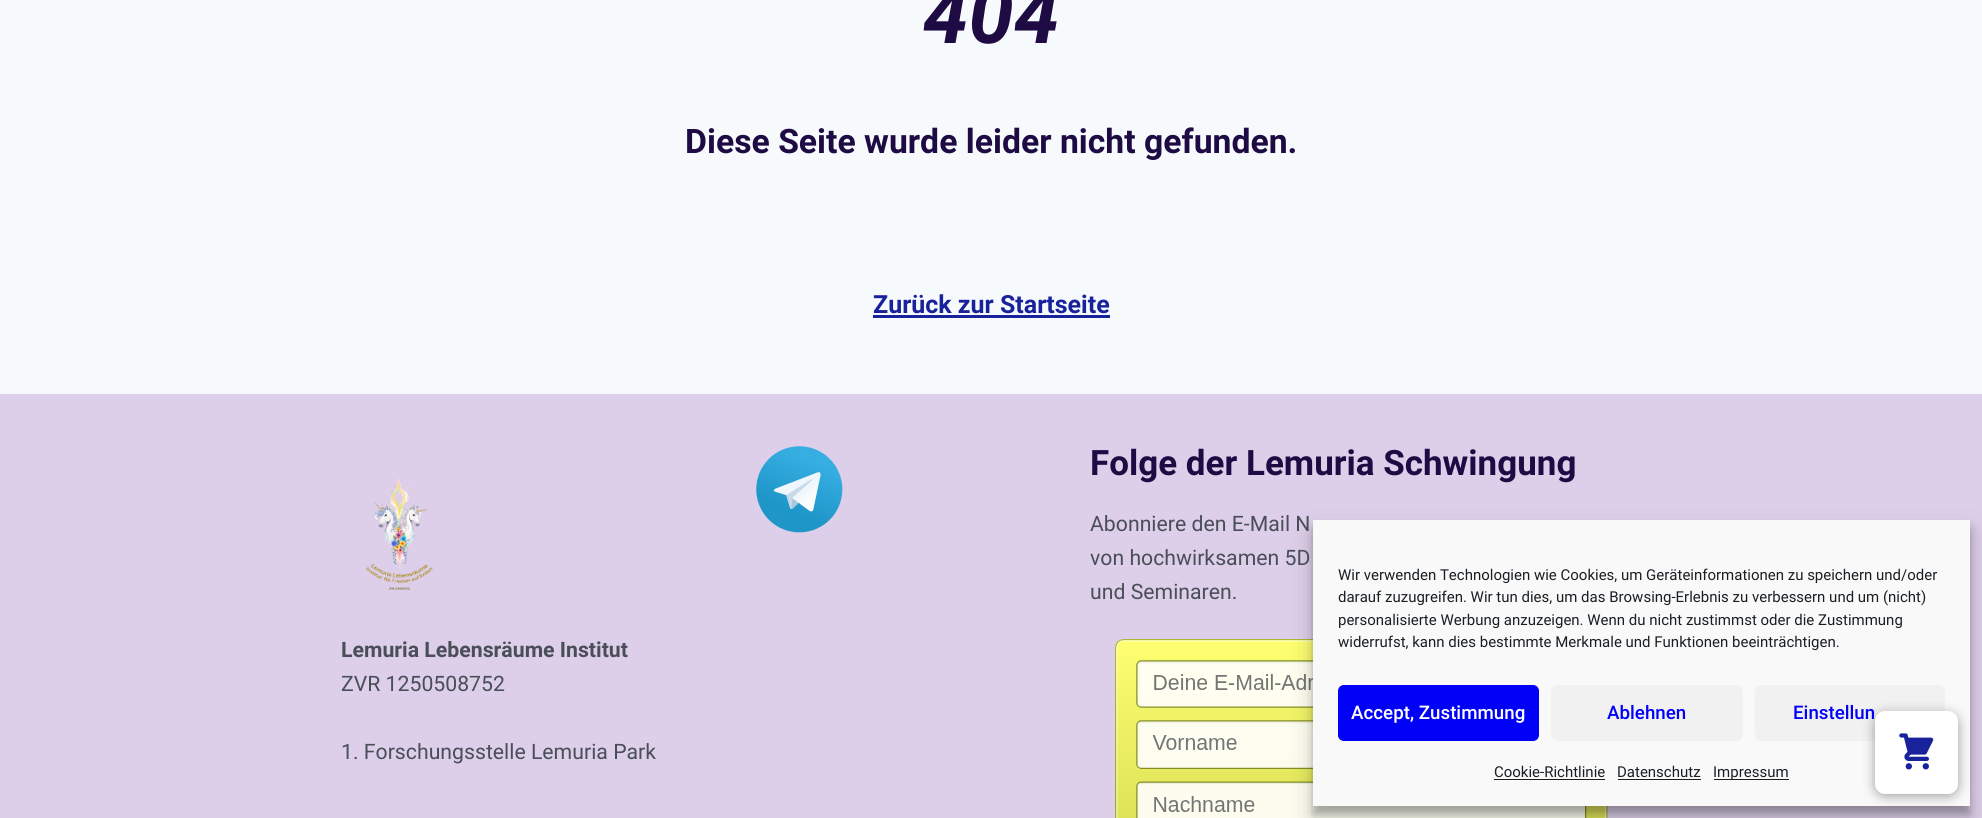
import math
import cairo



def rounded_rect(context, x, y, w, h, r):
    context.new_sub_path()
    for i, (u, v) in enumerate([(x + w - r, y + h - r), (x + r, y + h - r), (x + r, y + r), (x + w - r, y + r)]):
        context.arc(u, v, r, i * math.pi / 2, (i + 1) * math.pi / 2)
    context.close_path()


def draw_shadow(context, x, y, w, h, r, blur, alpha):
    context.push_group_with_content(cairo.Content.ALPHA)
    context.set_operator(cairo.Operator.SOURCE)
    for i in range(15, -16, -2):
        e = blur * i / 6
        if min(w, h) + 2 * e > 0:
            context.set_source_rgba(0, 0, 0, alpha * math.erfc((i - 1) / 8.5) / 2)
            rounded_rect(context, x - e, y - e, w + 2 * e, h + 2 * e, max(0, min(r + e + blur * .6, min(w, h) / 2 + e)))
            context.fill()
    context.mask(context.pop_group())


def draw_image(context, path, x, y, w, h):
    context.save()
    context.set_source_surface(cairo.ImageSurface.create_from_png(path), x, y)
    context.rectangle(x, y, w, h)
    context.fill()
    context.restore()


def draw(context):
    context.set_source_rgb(247 / 255, 250 / 255, 252 / 255)
    context.paint()
    context.set_source_rgb(24 / 255, 34 / 255, 155 / 255)
    context.rectangle(873, 315, 237, 3)
    context.fill()
    context.set_source_rgb(221 / 255, 207 / 255, 233 / 255)
    context.rectangle(0, 394, 1982, 424)
    context.fill()
    draw_image(context, "images/1.png", 756, 446, 87, 87)
    draw_image(context, "images/2.png", 1115, 639, 493, 179)
    draw_image(context, "images/3.png", 365, 478, 68, 112)
    context.set_source_rgb(0, 0, 0)
    draw_shadow(context, 1313, 528, 657, 286, 0, 4, 0.23)
    draw_shadow(context, 1313, 533, 657, 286, 0, 12.5, 0.19)
    context.set_source_rgb(249 / 255, 249 / 255, 249 / 255)
    context.rectangle(1313, 520, 657, 286)
    context.fill()
    context.set_source_rgb(1 / 255, 1 / 255, 248 / 255)
    rounded_rect(context, 1338.5, 685.5, 200, 55, 5.5)
    context.fill_preserve()
    context.set_line_width(1)
    context.stroke()
    context.set_source_rgb(241 / 255, 241 / 255, 241 / 255)
    rounded_rect(context, 1551, 685, 192, 56, 6)
    context.fill()
    rounded_rect(context, 1755, 685, 190, 56, 6)
    context.fill()
    context.set_source_rgb(25 / 255, 30 / 255, 35 / 255)
    context.rectangle(1494, 779, 111, 1)
    context.fill()
    context.rectangle(1618, 779, 83, 1)
    context.fill()
    context.rectangle(1714, 779, 75, 1)
    context.fill()
    context.set_source_rgb(0, 0, 0)
    draw_shadow(context, 1875, 714, 83, 82, 10, 6, 0.37)
    context.set_source_rgb(1, 1, 1)
    rounded_rect(context, 1875, 711, 83, 83, 10)
    context.fill()
    draw_image(context, "images/4.png", 1899, 733, 35, 37)
    context.select_font_face("Roboto", cairo.FontSlant.ITALIC, cairo.FontWeight.BOLD)
    context.set_font_size(81)
    context.set_source_rgb(30 / 255, 11 / 255, 68 / 255)
    context.move_to(923, 43)
    context.show_text("404")
    context.select_font_face("Roboto", cairo.FontSlant.NORMAL, cairo.FontWeight.BOLD)
    context.set_font_size(33.75)
    context.move_to(685, 153)
    context.show_text("Diese Seite wurde leider nicht gefunden.")
    context.set_font_size(25)
    context.set_source_rgb(24 / 255, 34 / 255, 155 / 255)
    context.move_to(873, 313)
    context.show_text("Zurück zur Startseite")
    context.set_font_size(35)
    context.set_source_rgb(30 / 255, 11 / 255, 68 / 255)
    context.move_to(1090, 475)
    context.show_text("Folge der Lemuria Schwingung")
    context.select_font_face("Roboto")
    context.set_font_size(21.25)
    context.set_source_rgb(73 / 255, 78 / 255, 88 / 255)
    context.move_to(1090, 531)
    context.show_text("Abonniere den E-Mail N")
    context.move_to(1090, 565)
    context.show_text("von hochwirksamen 5D")
    context.move_to(1090, 599)
    context.show_text("und Seminaren.")
    context.select_font_face("Roboto", cairo.FontSlant.NORMAL, cairo.FontWeight.BOLD)
    context.move_to(341, 657)
    context.show_text("Lemuria Lebensräume Institut")
    context.select_font_face("Roboto")
    context.move_to(341, 691)
    context.show_text("ZVR 1250508752")
    context.move_to(341, 759)
    context.show_text("1. Forschungsstelle Lemuria Park")
    context.set_font_size(15)
    context.set_source_rgb(25 / 255, 30 / 255, 35 / 255)
    context.move_to(1338, 580)
    context.show_text("Wir verwenden Technologien wie Cookies, um Geräteinformationen zu speichern und/oder")
    context.move_to(1338, 602)
    context.show_text("darauf zuzugreifen. Wir tun dies, um das Browsing-Erlebnis zu verbessern und um (nicht)")
    context.move_to(1338, 625)
    context.show_text("personalisierte Werbung anzuzeigen. Wenn du nicht zustimmst oder die Zustimmung")
    context.move_to(1338, 647)
    context.show_text("widerrufst, kann dies bestimmte Merkmale und Funktionen beeinträchtigen.")
    context.select_font_face("Roboto Medium")
    context.set_font_size(18.75)
    context.set_source_rgb(1, 1, 1)
    context.move_to(1351, 719)
    context.show_text("Accept, Zustimmung")
    context.set_source_rgb(1 / 255, 1 / 255, 248 / 255)
    context.move_to(1607, 719)
    context.show_text("Ablehnen")
    context.move_to(1793, 719)
    context.show_text("Einstellun")
    context.select_font_face("Roboto")
    context.set_font_size(15)
    context.set_source_rgb(25 / 255, 30 / 255, 35 / 255)
    context.move_to(1494, 777)
    context.show_text("Cookie-Richtlinie")
    context.move_to(1617, 777)
    context.show_text("Datenschutz")
    context.move_to(1713, 777)
    context.show_text("Impressum")


surface = cairo.ImageSurface(cairo.Format.RGB24, 1982, 818)
context = cairo.Context(surface)
options = cairo.FontOptions()
options.set_hint_metrics(cairo.HintMetrics.OFF)
options.set_hint_style(cairo.HintStyle.NONE)
context.set_font_options(options)
context.set_miter_limit(4)
draw(context)
surface.write_to_png("out.png")
